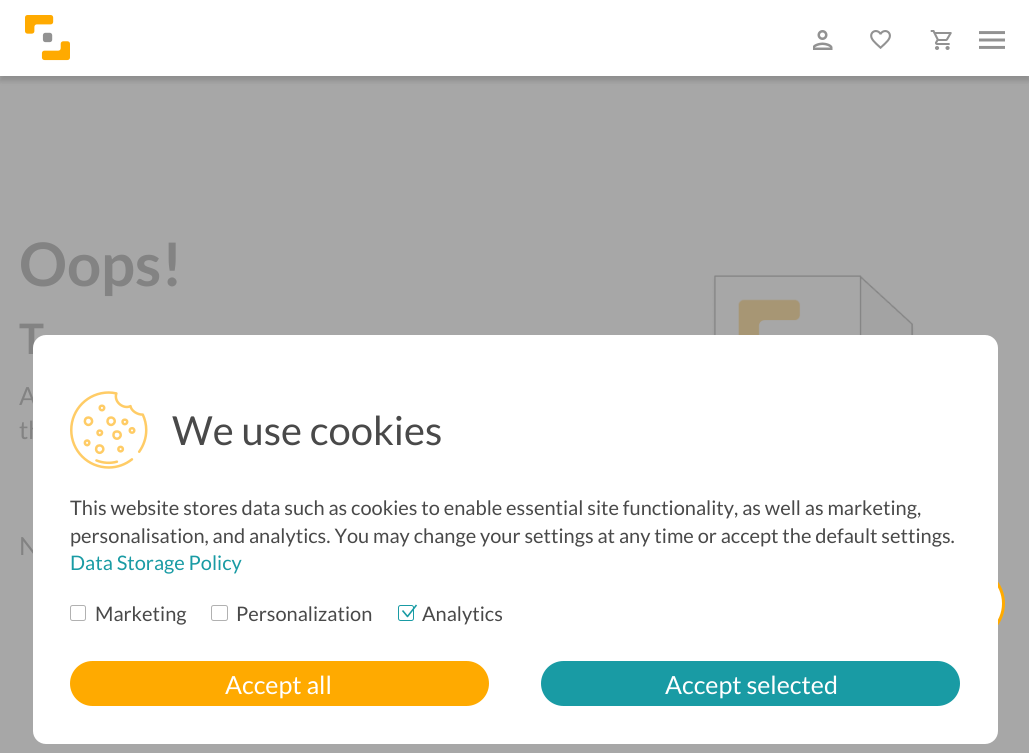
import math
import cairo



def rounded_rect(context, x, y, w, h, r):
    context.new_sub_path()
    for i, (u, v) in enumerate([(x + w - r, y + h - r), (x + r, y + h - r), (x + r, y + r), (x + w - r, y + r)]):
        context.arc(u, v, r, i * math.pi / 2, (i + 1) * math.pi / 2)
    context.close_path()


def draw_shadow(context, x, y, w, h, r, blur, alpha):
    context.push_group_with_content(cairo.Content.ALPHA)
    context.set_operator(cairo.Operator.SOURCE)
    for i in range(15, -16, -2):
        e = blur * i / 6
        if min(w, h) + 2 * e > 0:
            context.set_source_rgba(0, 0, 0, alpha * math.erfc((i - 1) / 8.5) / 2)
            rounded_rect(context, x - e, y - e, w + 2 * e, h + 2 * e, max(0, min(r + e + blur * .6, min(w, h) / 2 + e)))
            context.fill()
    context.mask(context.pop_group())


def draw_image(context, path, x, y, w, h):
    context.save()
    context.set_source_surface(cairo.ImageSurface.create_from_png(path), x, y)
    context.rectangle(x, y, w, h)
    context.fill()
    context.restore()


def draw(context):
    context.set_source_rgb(167 / 255, 167 / 255, 167 / 255)
    context.paint()
    context.set_source_rgb(0, 0, 0)
    draw_shadow(context, 0, 5, 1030, 76, 0, 2.5, 0.15)
    context.set_source_rgb(1, 1, 1)
    context.rectangle(0, 0, 1029, 76)
    context.fill()
    draw_image(context, "images/1.png", 25, 15, 45, 46)
    draw_image(context, "images/2.png", 813, 30, 20, 20)
    draw_image(context, "images/3.png", 870, 30, 21, 19)
    draw_image(context, "images/4.png", 930, 30, 22, 20)
    draw_image(context, "images/5.png", 979, 31, 26, 18)
    draw_image(context, "images/6.png", 712, 275, 203, 60)
    context.arc(967.5, 603.5, 36, 0, 2 * math.pi)
    context.fill_preserve()
    context.set_source_rgb(1, 170 / 255, 0)
    context.set_line_width(3)
    context.stroke()
    context.select_font_face("Lato", cairo.FontSlant.NORMAL, cairo.FontWeight.BOLD)
    context.set_font_size(60)
    context.set_source_rgb(131 / 255, 131 / 255, 131 / 255)
    context.move_to(19, 286)
    context.show_text("Oops!")
    context.set_font_size(42)
    context.move_to(19, 354)
    context.show_text("T")
    context.select_font_face("Lato")
    context.set_font_size(25)
    context.move_to(19, 405)
    context.show_text("A")
    context.move_to(19, 439)
    context.show_text("th")
    context.move_to(19, 555)
    context.show_text("N")
    context.set_source_rgb(1, 1, 1)
    rounded_rect(context, 33, 335, 965, 409, 13)
    context.fill()
    draw_image(context, "images/7.png", 70, 391, 78, 78)
    context.set_font_size(40)
    context.set_source_rgb(73 / 255, 73 / 255, 73 / 255)
    context.move_to(172, 445)
    context.show_text("We use cookies")
    context.set_font_size(20)
    context.move_to(70, 515)
    context.show_text("This website stores data such as cookies to enable essential site functionality, as well as marketing,")
    context.move_to(70, 543)
    context.show_text("personalisation, and analytics. You may change your settings at any time or accept the default settings.")
    context.set_source_rgb(25 / 255, 155 / 255, 164 / 255)
    context.move_to(70, 570)
    context.show_text("Data Storage Policy")
    rounded_rect(context, 70.5, 605.5, 15, 15, 2)
    context.set_source_rgb(177 / 255, 177 / 255, 177 / 255)
    context.set_line_width(1)
    context.stroke()
    context.set_source_rgb(73 / 255, 73 / 255, 73 / 255)
    context.move_to(95, 621)
    context.show_text("Marketing")
    rounded_rect(context, 211.5, 605.5, 16, 15, 2)
    context.set_source_rgb(177 / 255, 177 / 255, 177 / 255)
    context.stroke()
    context.set_source_rgb(73 / 255, 73 / 255, 73 / 255)
    context.move_to(236, 621)
    context.show_text("Personalization")
    rounded_rect(context, 398.5, 605.5, 15, 15, 2)
    context.set_source_rgb(25 / 255, 155 / 255, 164 / 255)
    context.stroke()
    context.new_path()
    context.move_to(402.5, 610.5)
    context.line_to(407.5, 616.5)
    context.line_to(416.5, 605)
    context.set_line_width(1.6)
    context.set_line_join(cairo.LineJoin.ROUND)
    context.stroke()
    context.set_source_rgb(73 / 255, 73 / 255, 73 / 255)
    context.move_to(422, 621)
    context.show_text("Analytics")
    context.set_source_rgb(1, 170 / 255, 0)
    rounded_rect(context, 70, 661, 419, 45, 22.5)
    context.fill()
    context.set_font_size(25)
    context.set_source_rgb(1, 1, 1)
    context.move_to(225, 694)
    context.show_text("Accept all")
    context.set_source_rgb(25 / 255, 155 / 255, 164 / 255)
    rounded_rect(context, 541, 661, 419, 45, 22.5)
    context.fill()
    context.set_source_rgb(1, 1, 1)
    context.move_to(665, 694)
    context.show_text("Accept selected")


surface = cairo.ImageSurface(cairo.Format.RGB24, 1029, 753)
context = cairo.Context(surface)
options = cairo.FontOptions()
options.set_hint_metrics(cairo.HintMetrics.OFF)
options.set_hint_style(cairo.HintStyle.NONE)
context.set_font_options(options)
context.set_miter_limit(4)
draw(context)
surface.write_to_png("out.png")
